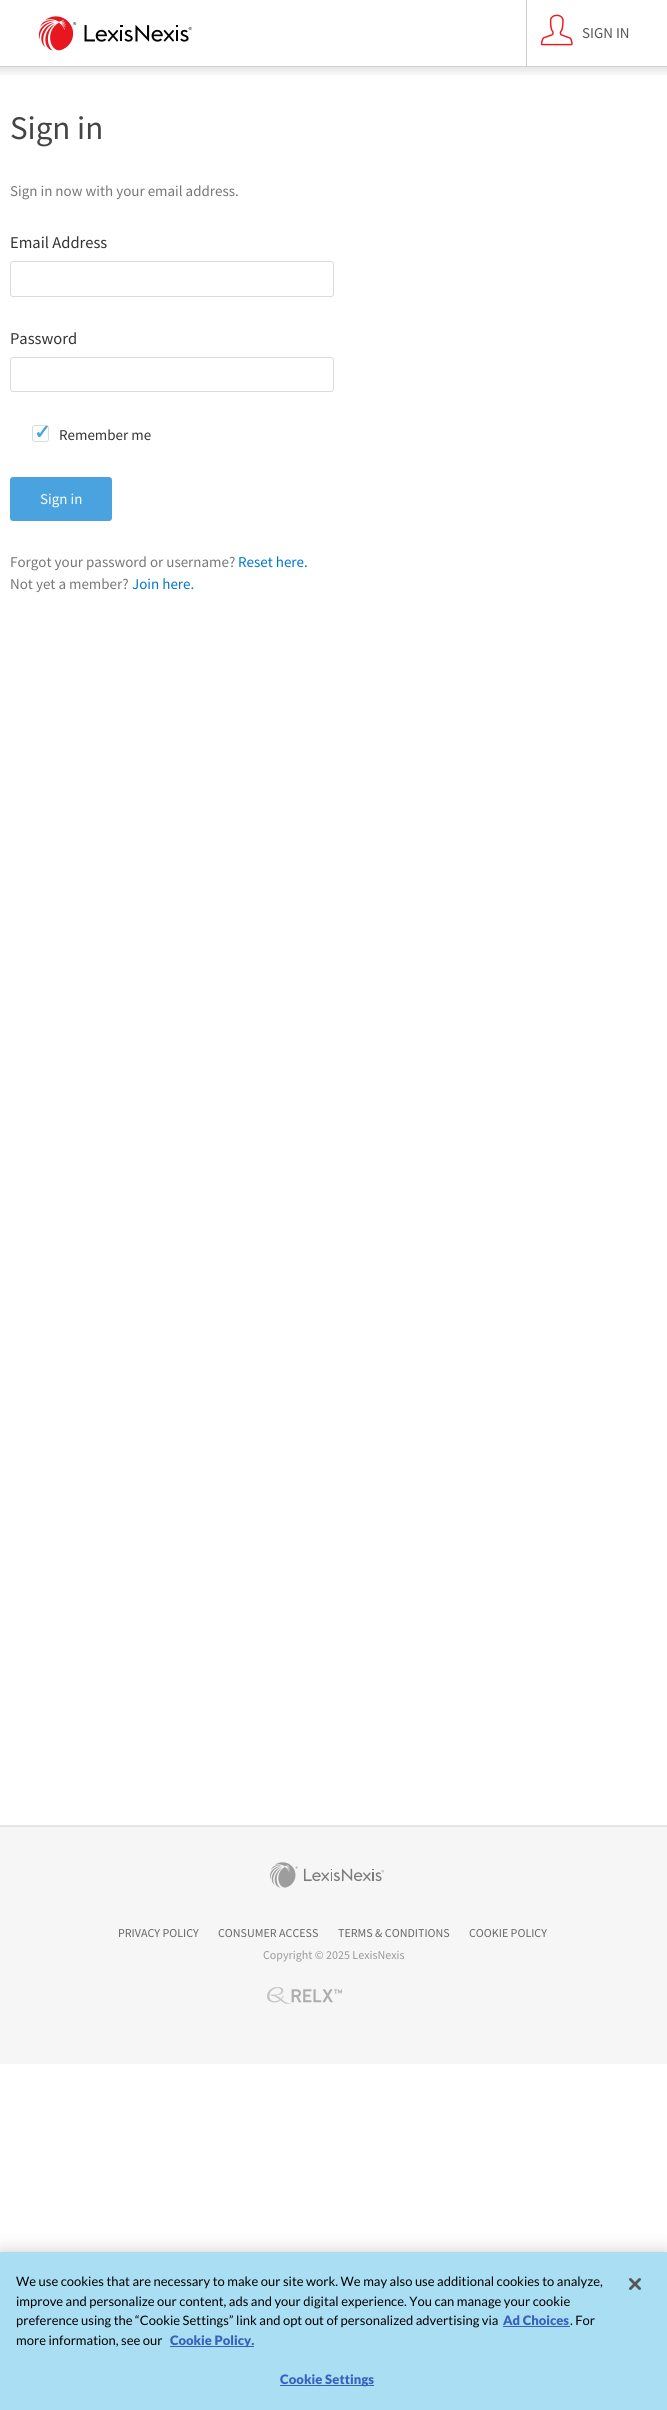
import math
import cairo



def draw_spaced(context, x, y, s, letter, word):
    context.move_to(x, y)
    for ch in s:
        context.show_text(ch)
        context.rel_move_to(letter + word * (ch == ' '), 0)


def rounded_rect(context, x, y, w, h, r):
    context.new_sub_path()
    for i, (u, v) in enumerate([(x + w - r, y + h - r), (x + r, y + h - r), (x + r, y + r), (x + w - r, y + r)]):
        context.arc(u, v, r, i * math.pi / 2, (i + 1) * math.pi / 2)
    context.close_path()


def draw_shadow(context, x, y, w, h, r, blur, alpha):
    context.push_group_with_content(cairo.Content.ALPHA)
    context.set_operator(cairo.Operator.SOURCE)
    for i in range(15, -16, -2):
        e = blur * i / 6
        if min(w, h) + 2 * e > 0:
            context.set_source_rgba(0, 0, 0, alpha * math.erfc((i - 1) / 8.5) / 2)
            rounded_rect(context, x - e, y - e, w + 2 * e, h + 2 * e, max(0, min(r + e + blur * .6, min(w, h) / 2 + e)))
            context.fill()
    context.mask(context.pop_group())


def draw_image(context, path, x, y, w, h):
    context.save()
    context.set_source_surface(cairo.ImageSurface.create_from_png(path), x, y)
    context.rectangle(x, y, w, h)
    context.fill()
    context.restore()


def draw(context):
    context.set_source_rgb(1, 1, 1)
    context.paint()
    context.set_source_rgb(230 / 255, 230 / 255, 230 / 255)
    context.rectangle(0, 66, 667, 1)
    context.fill()
    draw_image(context, "images/1.png", 38, 16, 154, 35)
    context.set_source_rgb(204 / 255, 204 / 255, 204 / 255)
    context.rectangle(526, 0, 1, 66)
    context.fill()
    draw_image(context, "images/2.png", 540, 14, 33, 32)
    gradient = cairo.LinearGradient(334, 66, 334, 78)
    gradient.add_color_stop_rgba(0, 0, 0, 0, 0.1)
    gradient.add_color_stop_rgba(1, 0, 0, 0, 0)
    context.set_source(gradient)
    context.rectangle(0, 66, 667, 9)
    context.fill()
    rounded_rect(context, 10.5, 261.5, 323, 35, 2.5)
    context.set_source_rgb(217 / 255, 220 / 255, 222 / 255)
    context.set_line_width(1)
    context.stroke()
    rounded_rect(context, 10.5, 357.5, 323, 34, 2.5)
    context.stroke()
    rounded_rect(context, 32.5, 425.5, 16, 16, 2.5)
    context.stroke()
    context.set_source_rgb(74 / 255, 163 / 255, 223 / 255)
    rounded_rect(context, 10, 477, 102, 44, 3)
    context.fill()
    context.set_source_rgb(230 / 255, 230 / 255, 230 / 255)
    context.rectangle(0, 1825, 667, 1)
    context.fill()
    context.set_source_rgb(246 / 255, 246 / 255, 246 / 255)
    context.rectangle(0, 1827, 667, 237)
    context.fill()
    context.set_source_rgb(227 / 255, 227 / 255, 227 / 255)
    context.rectangle(0, 1826, 667, 1)
    context.fill()
    draw_image(context, "images/3.png", 269, 1862, 115, 26)
    draw_image(context, "images/4.png", 267, 1987, 75, 17)
    context.set_source_rgb(0, 0, 0)
    draw_shadow(context, 0, 2252, 667, 158, 0, 9, 0.2)
    context.set_source_rgb(170 / 255, 222 / 255, 243 / 255)
    context.rectangle(0, 2252, 667, 158)
    context.fill()
    context.set_source_rgb(56 / 255, 96 / 255, 190 / 255)
    context.rectangle(503, 2326, 67, 1)
    context.fill()
    context.rectangle(170, 2346, 84, 1)
    context.fill()
    context.rectangle(280, 2385, 94, 1)
    context.fill()
    draw_image(context, "images/5.png", 629, 2278, 12, 12)
    context.select_font_face("Source Sans Pro")
    context.set_font_size(15)
    context.set_source_rgb(85 / 255, 85 / 255, 85 / 255)
    context.move_to(582, 38)
    context.show_text("SIGN IN")
    context.set_font_size(33)
    context.set_source_rgb(68 / 255, 68 / 255, 68 / 255)
    context.move_to(10, 139)
    context.show_text("Sign in")
    context.set_font_size(15)
    context.set_source_rgb(119 / 255, 119 / 255, 119 / 255)
    context.move_to(10, 196)
    context.show_text("Sign in now with your email address.")
    context.set_font_size(16.5)
    context.set_source_rgb(51 / 255, 51 / 255, 51 / 255)
    context.move_to(10, 248)
    context.show_text("Email Address")
    context.move_to(10, 344)
    context.show_text("Password")
    context.select_font_face("DejaVu Sans", cairo.FontSlant.NORMAL, cairo.FontWeight.BOLD)
    context.set_font_size(20)
    context.set_source_rgb(74 / 255, 163 / 255, 223 / 255)
    context.move_to(34, 439)
    context.show_text("✓")
    context.select_font_face("Source Sans Pro")
    context.set_font_size(15)
    context.set_source_rgb(51 / 255, 51 / 255, 51 / 255)
    context.move_to(59, 440)
    context.show_text("Remember me")
    context.set_source_rgb(1, 1, 1)
    context.move_to(40, 504)
    context.show_text("Sign in")
    context.set_source_rgb(119 / 255, 119 / 255, 119 / 255)
    context.move_to(10, 567)
    context.show_text("Forgot your password or username?")
    context.set_source_rgb(0, 119 / 255, 204 / 255)
    context.move_to(238, 567)
    context.show_text("Reset here.")
    context.set_source_rgb(119 / 255, 119 / 255, 119 / 255)
    context.move_to(10, 589)
    context.show_text("Not yet a member?")
    context.set_source_rgb(0, 119 / 255, 204 / 255)
    context.move_to(132, 589)
    context.show_text("Join here.")
    context.set_font_size(12)
    context.set_source_rgb(102 / 255, 102 / 255, 102 / 255)
    context.move_to(118, 1937)
    context.show_text("PRIVACY POLICY")
    context.move_to(218, 1937)
    context.show_text("CONSUMER ACCESS")
    context.move_to(338, 1937)
    context.show_text("TERMS & CONDITIONS")
    context.move_to(469, 1937)
    context.show_text("COOKIE POLICY")
    context.set_source_rgb(153 / 255, 153 / 255, 153 / 255)
    context.move_to(263, 1959)
    context.show_text("Copyright © 2025 LexisNexis")
    context.select_font_face("Lato")
    context.set_font_size(13)
    context.set_source_rgb(0, 0, 0)
    context.move_to(16, 2286)
    context.show_text("We use cookies that are necessary to make our site work. We may also use additional cookies to analyze,")
    context.move_to(16, 2306)
    context.show_text("improve and personalize our content, ads and your digital experience. You can manage your cookie")
    context.move_to(16, 2325)
    context.show_text("preference using the “Cookie Settings” link and opt out of personalized advertising via")
    context.select_font_face("Lato Black")
    context.set_source_rgb(56 / 255, 96 / 255, 190 / 255)
    context.move_to(503, 2325)
    context.show_text("Ad Choices")
    context.select_font_face("Lato")
    context.set_source_rgb(0, 0, 0)
    context.move_to(570, 2325)
    context.show_text(". For")
    context.move_to(16, 2345)
    context.show_text("more information, see our")
    context.select_font_face("Lato Black")
    context.set_source_rgb(56 / 255, 96 / 255, 190 / 255)
    context.move_to(170, 2345)
    context.show_text("Cookie Policy.")
    draw_spaced(context, 280, 2384, "Cookie Settings", 0.1, 0)


surface = cairo.ImageSurface(cairo.Format.RGB24, 667, 2410)
context = cairo.Context(surface)
options = cairo.FontOptions()
options.set_hint_metrics(cairo.HintMetrics.OFF)
options.set_hint_style(cairo.HintStyle.NONE)
context.set_font_options(options)
context.set_miter_limit(4)
draw(context)
surface.write_to_png("out.png")
